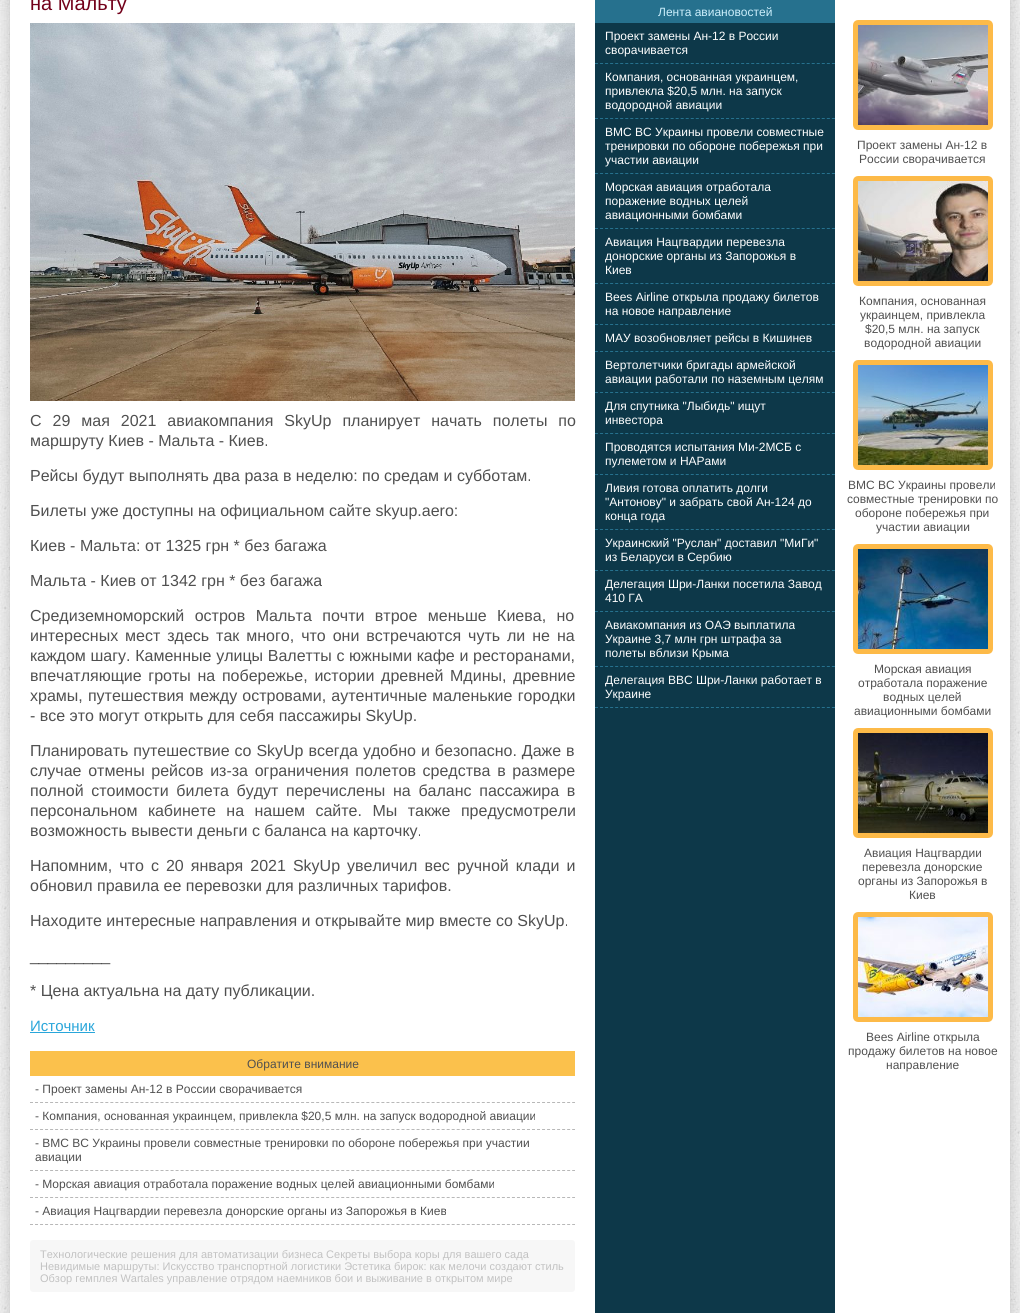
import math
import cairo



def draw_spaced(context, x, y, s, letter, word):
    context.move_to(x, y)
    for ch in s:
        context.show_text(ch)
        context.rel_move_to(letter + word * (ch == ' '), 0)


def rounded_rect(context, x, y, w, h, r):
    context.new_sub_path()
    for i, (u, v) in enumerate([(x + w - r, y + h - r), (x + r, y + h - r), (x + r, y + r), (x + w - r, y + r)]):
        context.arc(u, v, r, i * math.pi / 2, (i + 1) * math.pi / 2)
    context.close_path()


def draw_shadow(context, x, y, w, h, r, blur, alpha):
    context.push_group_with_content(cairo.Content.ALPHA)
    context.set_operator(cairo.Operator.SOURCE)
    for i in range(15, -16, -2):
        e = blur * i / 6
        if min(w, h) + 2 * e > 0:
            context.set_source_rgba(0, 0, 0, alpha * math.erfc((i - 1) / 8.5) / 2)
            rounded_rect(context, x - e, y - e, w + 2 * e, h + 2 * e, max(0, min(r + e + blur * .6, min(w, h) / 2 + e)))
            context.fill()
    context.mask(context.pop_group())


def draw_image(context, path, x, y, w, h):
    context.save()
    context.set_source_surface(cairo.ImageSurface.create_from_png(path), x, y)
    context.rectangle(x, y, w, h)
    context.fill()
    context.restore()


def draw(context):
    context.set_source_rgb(1, 1, 1)
    context.paint()
    draw_image(context, "images/1.png", 0, 0, 1020, 1313)
    context.set_source_rgb(0, 0, 0)
    draw_shadow(context, 10, -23, 1000, 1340, 0, 7.5, 0.2)
    context.set_source_rgb(1, 1, 1)
    context.rectangle(10, 0, 1000, 1313)
    context.fill()
    context.set_source_rgb(13 / 255, 56 / 255, 73 / 255)
    context.rectangle(595, 23, 240, 1290)
    context.fill()
    draw_image(context, "images/2.png", 30, 23, 545, 378)
    context.set_source_rgb(41 / 255, 166 / 255, 218 / 255)
    context.rectangle(30, 1032, 65, 1)
    context.fill()
    context.set_source_rgb(251 / 255, 193 / 255, 76 / 255)
    context.rectangle(30, 1051, 545, 25)
    context.fill()
    context.new_path()
    context.move_to(30, 1102.5)
    context.line_to(575, 1102.5)
    context.set_source_rgb(184 / 255, 184 / 255, 184 / 255)
    context.set_line_width(1)
    context.set_dash([3, 2.02])
    context.stroke()
    context.new_path()
    context.move_to(30, 1129.5)
    context.line_to(575, 1129.5)
    context.stroke()
    context.new_path()
    context.move_to(30, 1170.5)
    context.line_to(575, 1170.5)
    context.stroke()
    context.new_path()
    context.move_to(30, 1197.5)
    context.line_to(575, 1197.5)
    context.stroke()
    context.new_path()
    context.move_to(30, 1224.5)
    context.line_to(575, 1224.5)
    context.stroke()
    context.set_source_rgb(247 / 255, 247 / 255, 247 / 255)
    rounded_rect(context, 30, 1240, 545, 52, 3)
    context.fill()
    context.set_source_rgb(38 / 255, 113 / 255, 142 / 255)
    context.rectangle(595, 0, 240, 23)
    context.fill()
    context.new_path()
    context.move_to(595, 63.5)
    context.line_to(835, 63.5)
    context.set_dash([3, 2.04])
    context.stroke()
    context.new_path()
    context.move_to(595, 118.5)
    context.line_to(835, 118.5)
    context.stroke()
    context.new_path()
    context.move_to(595, 173.5)
    context.line_to(835, 173.5)
    context.stroke()
    context.new_path()
    context.move_to(595, 228.5)
    context.line_to(835, 228.5)
    context.stroke()
    context.new_path()
    context.move_to(595, 283.5)
    context.line_to(835, 283.5)
    context.stroke()
    context.new_path()
    context.move_to(595, 324.5)
    context.line_to(835, 324.5)
    context.stroke()
    context.new_path()
    context.move_to(595, 351.5)
    context.line_to(835, 351.5)
    context.stroke()
    context.new_path()
    context.move_to(595, 392.5)
    context.line_to(835, 392.5)
    context.stroke()
    context.new_path()
    context.move_to(595, 433.5)
    context.line_to(835, 433.5)
    context.stroke()
    context.new_path()
    context.move_to(595, 474.5)
    context.line_to(835, 474.5)
    context.stroke()
    context.new_path()
    context.move_to(595, 529.5)
    context.line_to(835, 529.5)
    context.stroke()
    context.new_path()
    context.move_to(595, 570.5)
    context.line_to(835, 570.5)
    context.stroke()
    context.new_path()
    context.move_to(595, 611.5)
    context.line_to(835, 611.5)
    context.stroke()
    context.new_path()
    context.move_to(595, 666.5)
    context.line_to(835, 666.5)
    context.stroke()
    context.new_path()
    context.move_to(595, 707.5)
    context.line_to(835, 707.5)
    context.stroke()
    rounded_rect(context, 855.5, 22.5, 135, 105, 2.5)
    context.set_source_rgb(253 / 255, 186 / 255, 72 / 255)
    context.set_line_width(5)
    context.set_dash([])
    context.stroke()
    draw_image(context, "images/3.png", 858, 25, 130, 100)
    rounded_rect(context, 855.5, 178.5, 135, 105, 2.5)
    context.stroke()
    draw_image(context, "images/4.png", 858, 181, 130, 100)
    rounded_rect(context, 855.5, 362.5, 135, 105, 2.5)
    context.stroke()
    draw_image(context, "images/5.png", 858, 365, 130, 100)
    rounded_rect(context, 855.5, 546.5, 135, 105, 2.5)
    context.stroke()
    draw_image(context, "images/6.png", 858, 549, 130, 100)
    rounded_rect(context, 855.5, 730.5, 135, 105, 2.5)
    context.stroke()
    draw_image(context, "images/7.png", 858, 733, 130, 100)
    rounded_rect(context, 855.5, 914.5, 135, 105, 2.5)
    context.stroke()
    draw_image(context, "images/8.png", 858, 917, 130, 100)
    context.select_font_face("Liberation Sans")
    context.set_font_size(20)
    context.set_source_rgb(114 / 255, 0, 26 / 255)
    context.move_to(30, 10)
    context.show_text("на Мальту")
    context.set_font_size(16)
    context.set_source_rgb(80 / 255, 80 / 255, 80 / 255)
    draw_spaced(context, 30, 426, "С 29 мая 2021 авиакомпания SkyUp планирует начать полеты по", 0, 6.5)
    context.move_to(30, 446)
    context.show_text("маршруту Киев - Мальта - Киев.")
    context.move_to(30, 481)
    context.show_text("Рейсы будут выполнять два раза в неделю: по средам и субботам.")
    context.move_to(30, 516)
    context.show_text("Билеты уже доступны на официальном сайте skyup.aero:")
    context.move_to(30, 551)
    context.show_text("Киев - Мальта: от 1325 грн * без багажа")
    context.move_to(30, 586)
    context.show_text("Мальта - Киев от 1342 грн * без багажа")
    draw_spaced(context, 30, 621, "Средиземноморский остров Мальта почти втрое меньше Киева, но", 0, 6)
    draw_spaced(context, 30, 641, "интересных мест здесь так много, что они встречаются чуть ли не на", 0, 2.5)
    draw_spaced(context, 30, 661, "каждом шагу. Каменные улицы Валетты с южными кафе и ресторанами,", 0, 0.25)
    draw_spaced(context, 30, 681, "впечатляющие гроты на побережье, истории древней Мдины, древние", 0, 2.25)
    draw_spaced(context, 30, 701, "храмы, путешествия между островами, аутентичные маленькие городки", 0, 0.75)
    context.move_to(30, 721)
    context.show_text("- все это могут открыть для себя пассажиры SkyUp.")
    draw_spaced(context, 30, 756, "Планировать путешествие со SkyUp всегда удобно и безопасно. Даже в", 0, 0.5)
    draw_spaced(context, 30, 776, "случае отмены рейсов из-за ограничения полетов средства в размере", 0, 2.25)
    draw_spaced(context, 30, 796, "полной стоимости билета будут перечислены на баланс пассажира в", 0, 3.25)
    draw_spaced(context, 30, 816, "персональном кабинете на нашем сайте. Мы также предусмотрели", 0, 6)
    context.move_to(30, 836)
    context.show_text("возможность вывести деньги с баланса на карточку.")
    draw_spaced(context, 30, 871, "Напомним, что с 20 января 2021 SkyUp увеличил вес ручной клади и", 0, 2.6)
    context.move_to(30, 891)
    context.show_text("обновил правила ее перевозки для различных тарифов.")
    context.move_to(30, 926)
    context.show_text("Находите интересные направления и открывайте мир вместе со SkyUp.")
    context.move_to(30, 961)
    context.show_text("_________")
    context.move_to(30, 996)
    context.show_text("* Цена актуальна на дату публикации.")
    context.set_font_size(15)
    context.set_source_rgb(41 / 255, 166 / 255, 218 / 255)
    context.move_to(30, 1031)
    context.show_text("Источник")
    context.set_font_size(12)
    context.set_source_rgb(80 / 255, 80 / 255, 80 / 255)
    context.move_to(247, 1068)
    context.show_text("Обратите внимание")
    context.move_to(35, 1093)
    context.show_text("- Проект замены Ан-12 в России сворачивается")
    context.move_to(35, 1120)
    context.show_text("- Компания, основанная украинцем, привлекла $20,5 млн. на запуск водородной авиации")
    context.move_to(35, 1147)
    context.show_text("- ВМС ВС Украины провели совместные тренировки по обороне побережья при участии")
    context.move_to(35, 1161)
    context.show_text("авиации")
    context.move_to(35, 1188)
    context.show_text("- Морская авиация отработала поражение водных целей авиационными бомбами")
    context.move_to(35, 1215)
    context.show_text("- Авиация Нацгвардии перевезла донорские органы из Запорожья в Киев")
    context.set_font_size(11)
    context.set_source_rgb(194 / 255, 194 / 255, 194 / 255)
    context.move_to(40, 1258)
    context.show_text("Технологические решения для автоматизации бизнеса Секреты выбора коры для вашего сада")
    context.move_to(40, 1270)
    context.show_text("Невидимые маршруты: Искусство транспортной логистики Эстетика бирок: как мелочи создают стиль")
    context.move_to(40, 1282)
    context.show_text("Обзор гемплея Wartales управление отрядом наемников бои и выживание в открытом мире")
    context.set_font_size(12)
    context.set_source_rgb(204 / 255, 239 / 255, 252 / 255)
    context.move_to(658, 16)
    context.show_text("Лента авиановостей")
    context.set_source_rgb(1, 1, 1)
    context.move_to(605, 40)
    context.show_text("Проект замены Ан-12 в России")
    context.move_to(605, 54)
    context.show_text("сворачивается")
    context.move_to(605, 81)
    context.show_text("Компания, основанная украинцем,")
    context.move_to(605, 95)
    context.show_text("привлекла $20,5 млн. на запуск")
    context.move_to(605, 109)
    context.show_text("водородной авиации")
    context.move_to(605, 136)
    context.show_text("ВМС ВС Украины провели совместные")
    context.move_to(605, 150)
    context.show_text("тренировки по обороне побережья при")
    context.move_to(605, 164)
    context.show_text("участии авиации")
    context.move_to(605, 191)
    context.show_text("Морская авиация отработала")
    context.move_to(605, 205)
    context.show_text("поражение водных целей")
    context.move_to(605, 219)
    context.show_text("авиационными бомбами")
    context.move_to(605, 246)
    context.show_text("Авиация Нацгвардии перевезла")
    context.move_to(605, 260)
    context.show_text("донорские органы из Запорожья в")
    context.move_to(605, 274)
    context.show_text("Киев")
    context.move_to(605, 301)
    context.show_text("Bees Airline открыла продажу билетов")
    context.move_to(605, 315)
    context.show_text("на новое направление")
    context.move_to(605, 342)
    context.show_text("МАУ возобновляет рейсы в Кишинев")
    context.move_to(605, 369)
    context.show_text("Вертолетчики бригады армейской")
    context.move_to(605, 383)
    context.show_text("авиации работали по наземным целям")
    context.move_to(605, 410)
    context.show_text("Для спутника \"Лыбидь\" ищут")
    context.move_to(605, 424)
    context.show_text("инвестора")
    context.move_to(605, 451)
    context.show_text("Проводятся испытания Ми-2МСБ с")
    context.move_to(605, 465)
    context.show_text("пулеметом и НАРами")
    context.move_to(605, 492)
    context.show_text("Ливия готова оплатить долги")
    context.move_to(605, 506)
    context.show_text("\"Антонову\" и забрать свой Ан-124 до")
    context.move_to(605, 520)
    context.show_text("конца года")
    context.move_to(605, 547)
    context.show_text("Украинский \"Руслан\" доставил \"МиГи\"")
    context.move_to(605, 561)
    context.show_text("из Беларуси в Сербию")
    context.move_to(605, 588)
    context.show_text("Делегация Шри-Ланки посетила Завод")
    context.move_to(605, 602)
    context.show_text("410 ГА")
    context.move_to(605, 629)
    context.show_text("Авиакомпания из ОАЭ выплатила")
    context.move_to(605, 643)
    context.show_text("Украине 3,7 млн грн штрафа за")
    context.move_to(605, 657)
    context.show_text("полеты вблизи Крыма")
    context.move_to(605, 684)
    context.show_text("Делегация ВВС Шри-Ланки работает в")
    context.move_to(605, 698)
    context.show_text("Украине")
    context.set_source_rgb(80 / 255, 80 / 255, 80 / 255)
    context.move_to(857, 149)
    context.show_text("Проект замены Ан-12 в")
    context.move_to(859, 163)
    context.show_text("России сворачивается")
    context.move_to(859, 305)
    context.show_text("Компания, основанная")
    context.move_to(860, 319)
    context.show_text("украинцем, привлекла")
    context.move_to(865, 333)
    context.show_text("$20,5 млн. на запуск")
    context.move_to(864, 347)
    context.show_text("водородной авиации")
    context.move_to(848, 489)
    context.show_text("ВМС ВС Украины провели")
    context.move_to(847, 503)
    context.show_text("совместные тренировки по")
    context.move_to(855, 517)
    context.show_text("обороне побережья при")
    context.move_to(876, 531)
    context.show_text("участии авиации")
    context.move_to(874, 673)
    context.show_text("Морская авиация")
    context.move_to(858, 687)
    context.show_text("отработала поражение")
    context.move_to(883, 701)
    context.show_text("водных целей")
    context.move_to(854, 715)
    context.show_text("авиационными бомбами")
    context.move_to(864, 857)
    context.show_text("Авиация Нацгвардии")
    context.move_to(862, 871)
    context.show_text("перевезла донорские")
    context.move_to(858, 885)
    context.show_text("органы из Запорожья в")
    context.move_to(909, 899)
    context.show_text("Киев")
    context.move_to(866, 1041)
    context.show_text("Bees Airline открыла")
    context.move_to(848, 1055)
    context.show_text("продажу билетов на новое")
    context.move_to(886, 1069)
    context.show_text("направление")


surface = cairo.ImageSurface(cairo.Format.RGB24, 1020, 1313)
context = cairo.Context(surface)
options = cairo.FontOptions()
options.set_hint_metrics(cairo.HintMetrics.OFF)
options.set_hint_style(cairo.HintStyle.NONE)
context.set_font_options(options)
context.set_miter_limit(4)
draw(context)
surface.write_to_png("out.png")
